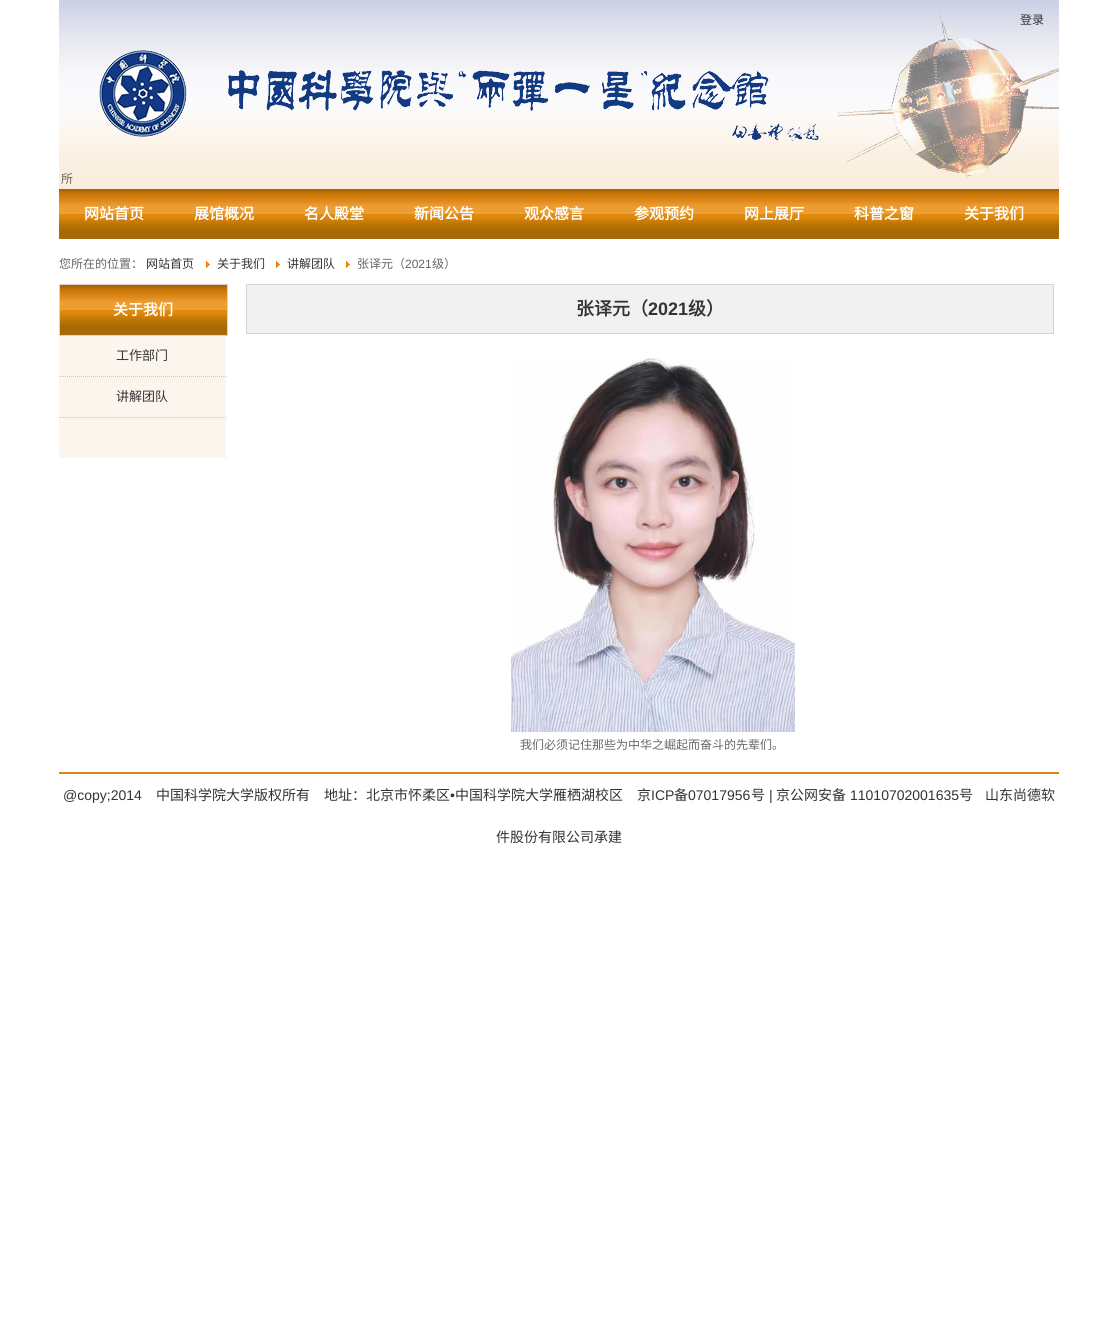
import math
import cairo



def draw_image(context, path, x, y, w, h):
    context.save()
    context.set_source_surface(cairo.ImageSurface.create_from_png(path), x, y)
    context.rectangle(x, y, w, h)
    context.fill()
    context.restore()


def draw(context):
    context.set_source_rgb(1, 1, 1)
    context.paint()
    draw_image(context, "images/1.png", 59, 0, 1000, 189)
    draw_image(context, "images/2.png", 837, 11, 222, 167)
    draw_image(context, "images/3.png", 99, 50, 88, 87)
    draw_image(context, "images/4.png", 228, 69, 591, 72)
    draw_image(context, "images/5.png", 59, 189, 1000, 50)
    draw_image(context, "images/6.png", 206, 261, 4, 7)
    draw_image(context, "images/6.png", 276, 261, 4, 7)
    draw_image(context, "images/6.png", 346, 261, 4, 7)
    draw_image(context, "images/7.png", 60, 285, 167, 50)
    context.rectangle(59.5, 284.5, 168, 51)
    context.set_source_rgb(212 / 255, 212 / 255, 212 / 255)
    context.set_line_width(1)
    context.stroke()
    context.set_source_rgb(252 / 255, 245 / 255, 237 / 255)
    context.rectangle(59, 336, 167, 122)
    context.fill()
    context.new_path()
    context.move_to(59, 376.5)
    context.line_to(226, 376.5)
    context.set_source_rgb(202 / 255, 199 / 255, 195 / 255)
    context.set_dash([1, 1])
    context.stroke()
    context.new_path()
    context.move_to(59, 417.5)
    context.line_to(226, 417.5)
    context.stroke()
    context.set_source_rgb(241 / 255, 241 / 255, 241 / 255)
    context.rectangle(246.5, 284.5, 807, 49)
    context.fill_preserve()
    context.set_source_rgb(212 / 255, 212 / 255, 212 / 255)
    context.set_dash([])
    context.stroke()
    draw_image(context, "images/8.png", 511, 357, 284, 375)
    context.set_source_rgb(218 / 255, 133 / 255, 22 / 255)
    context.rectangle(59, 772, 1000, 2)
    context.fill()
    context.select_font_face("Noto Sans CJK SC")
    context.set_font_size(12)
    context.set_source_rgb(51 / 255, 51 / 255, 51 / 255)
    context.move_to(1020, 24)
    context.show_text("登录")
    context.set_source_rgb(102 / 255, 102 / 255, 102 / 255)
    context.move_to(61, 183)
    context.show_text("所")
    context.select_font_face("Noto Sans CJK SC", cairo.FontSlant.NORMAL, cairo.FontWeight.BOLD)
    context.set_font_size(15)
    context.set_source_rgb(1, 1, 1)
    context.move_to(84, 219)
    context.show_text("网站首页")
    context.move_to(194, 219)
    context.show_text("展馆概况")
    context.move_to(304, 219)
    context.show_text("名人殿堂")
    context.move_to(414, 219)
    context.show_text("新闻公告")
    context.move_to(524, 219)
    context.show_text("观众感言")
    context.move_to(634, 219)
    context.show_text("参观预约")
    context.move_to(744, 219)
    context.show_text("网上展厅")
    context.move_to(854, 219)
    context.show_text("科普之窗")
    context.move_to(964, 219)
    context.show_text("关于我们")
    context.select_font_face("Noto Sans CJK SC")
    context.set_font_size(12)
    context.set_source_rgb(102 / 255, 102 / 255, 102 / 255)
    context.move_to(59, 268)
    context.show_text("您所在的位置：")
    context.set_source_rgb(51 / 255, 51 / 255, 51 / 255)
    context.move_to(146, 268)
    context.show_text("网站首页")
    context.move_to(217, 268)
    context.show_text("关于我们")
    context.move_to(287, 268)
    context.show_text("讲解团队")
    context.set_source_rgb(102 / 255, 102 / 255, 102 / 255)
    context.move_to(357, 268)
    context.show_text("张译元（")
    context.select_font_face("Liberation Sans")
    context.move_to(405, 268)
    context.show_text("2021")
    context.select_font_face("Noto Sans CJK SC")
    context.move_to(432, 268)
    context.show_text("级）")
    context.select_font_face("Noto Sans CJK SC", cairo.FontSlant.NORMAL, cairo.FontWeight.BOLD)
    context.set_font_size(15)
    context.set_source_rgb(1, 1, 1)
    context.move_to(113, 315)
    context.show_text("关于我们")
    context.select_font_face("Noto Sans CJK SC")
    context.set_font_size(13)
    context.set_source_rgb(51 / 255, 51 / 255, 51 / 255)
    context.move_to(116, 360)
    context.show_text("工作部门")
    context.move_to(116, 401)
    context.show_text("讲解团队")
    context.select_font_face("Noto Sans CJK SC", cairo.FontSlant.NORMAL, cairo.FontWeight.BOLD)
    context.set_font_size(18)
    context.move_to(576, 315)
    context.show_text("张译元（")
    context.select_font_face("Liberation Sans", cairo.FontSlant.NORMAL, cairo.FontWeight.BOLD)
    context.move_to(648, 315)
    context.show_text("2021")
    context.select_font_face("Noto Sans CJK SC", cairo.FontSlant.NORMAL, cairo.FontWeight.BOLD)
    context.move_to(688, 315)
    context.show_text("级）")
    context.select_font_face("Noto Sans CJK SC")
    context.set_font_size(12)
    context.set_source_rgb(102 / 255, 102 / 255, 102 / 255)
    context.move_to(520, 749)
    context.show_text("我们必须记住那些为中华之崛起而奋斗的先辈们。")
    context.select_font_face("Liberation Sans")
    context.set_font_size(14)
    context.set_source_rgb(51 / 255, 51 / 255, 51 / 255)
    context.move_to(63, 800)
    context.show_text("@copy;2014")
    context.select_font_face("Noto Sans CJK SC")
    context.move_to(156, 800)
    context.show_text("中国科学院大学版权所有　地址：北京市怀柔区")
    context.select_font_face("Liberation Sans")
    context.move_to(450, 800)
    context.show_text("•")
    context.select_font_face("Noto Sans CJK SC")
    context.move_to(455, 800)
    context.show_text("中国科学院大学雁栖湖校区　京")
    context.select_font_face("Liberation Sans")
    context.move_to(651, 800)
    context.show_text("ICP")
    context.select_font_face("Noto Sans CJK SC")
    context.move_to(674, 800)
    context.show_text("备")
    context.select_font_face("Liberation Sans")
    context.move_to(688, 800)
    context.show_text("07017956")
    context.select_font_face("Noto Sans CJK SC")
    context.move_to(751, 800)
    context.show_text("号")
    context.select_font_face("Liberation Sans")
    context.move_to(769, 800)
    context.show_text("|")
    context.select_font_face("Noto Sans CJK SC")
    context.move_to(776, 800)
    context.show_text("京公网安备")
    context.select_font_face("Liberation Sans")
    context.move_to(850, 800)
    context.show_text("11010702001635")
    context.select_font_face("Noto Sans CJK SC")
    context.move_to(959, 800)
    context.show_text("号")
    context.move_to(985, 800)
    context.show_text("山东尚德软")
    context.move_to(496, 842)
    context.show_text("件股份有限公司承建")


surface = cairo.ImageSurface(cairo.Format.RGB24, 1118, 1322)
context = cairo.Context(surface)
options = cairo.FontOptions()
options.set_hint_metrics(cairo.HintMetrics.OFF)
options.set_hint_style(cairo.HintStyle.NONE)
context.set_font_options(options)
context.set_miter_limit(4)
draw(context)
surface.write_to_png("out.png")
